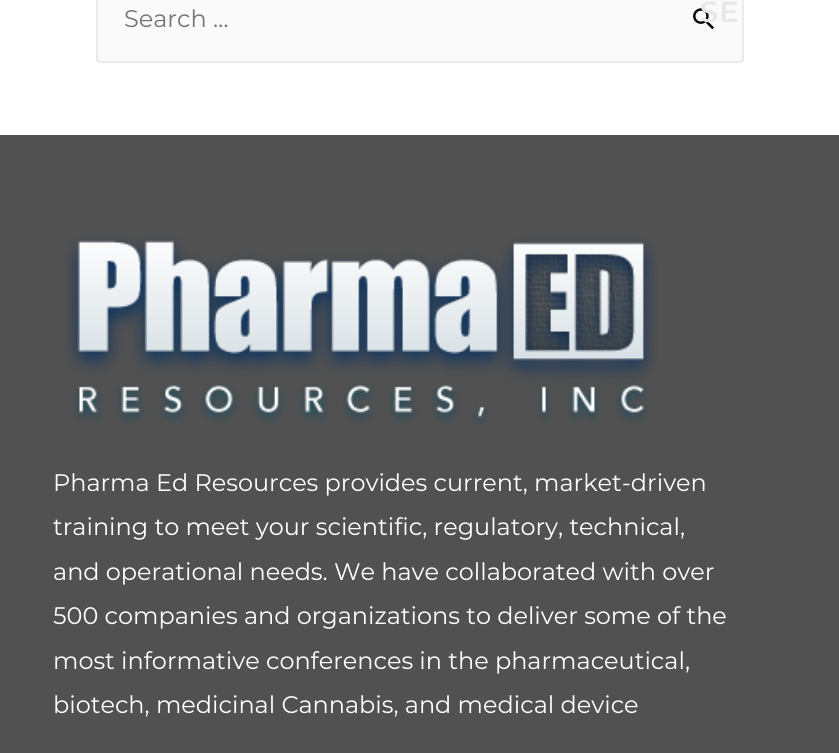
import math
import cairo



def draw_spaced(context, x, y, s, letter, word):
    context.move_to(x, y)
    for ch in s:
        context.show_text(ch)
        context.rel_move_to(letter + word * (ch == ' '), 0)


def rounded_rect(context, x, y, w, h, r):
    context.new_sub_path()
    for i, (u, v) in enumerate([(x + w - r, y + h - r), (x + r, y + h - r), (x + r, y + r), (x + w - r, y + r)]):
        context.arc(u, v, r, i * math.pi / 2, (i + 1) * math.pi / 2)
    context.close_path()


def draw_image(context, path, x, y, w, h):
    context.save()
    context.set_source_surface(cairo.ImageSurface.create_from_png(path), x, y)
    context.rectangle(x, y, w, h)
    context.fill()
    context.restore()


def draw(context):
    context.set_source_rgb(1, 1, 1)
    context.paint()
    context.set_source_rgb(250 / 255, 250 / 255, 250 / 255)
    rounded_rect(context, 97, -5, 646, 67, 3)
    context.fill_preserve()
    context.set_source_rgb(234 / 255, 234 / 255, 234 / 255)
    context.stroke()
    draw_image(context, "images/1.png", 693, 8, 21, 22)
    context.set_source_rgb(81 / 255, 81 / 255, 81 / 255)
    context.rectangle(0, 135, 839, 618)
    context.fill()
    draw_image(context, "images/2.png", 65, 236, 592, 189)
    context.select_font_face("Montserrat SemiBold")
    context.set_font_size(29)
    context.set_source_rgb(232 / 255, 232 / 255, 232 / 255)
    draw_spaced(context, 700, 22, "SE", 1, 0)
    context.select_font_face("Montserrat")
    context.set_font_size(23.95)
    context.set_source_rgb(117 / 255, 117 / 255, 117 / 255)
    context.move_to(124, 27)
    context.show_text("Search …")
    context.set_source_rgb(1, 1, 1)
    context.move_to(53, 491)
    context.show_text("Pharma Ed Resources provides current, market-driven")
    context.move_to(53, 535)
    context.show_text("training to meet your scientific, regulatory, technical,")
    context.move_to(53, 580)
    context.show_text("and operational needs. We have collaborated with over")
    context.move_to(53, 624)
    context.show_text("500 companies and organizations to deliver some of the")
    context.move_to(53, 669)
    context.show_text("most informative conferences in the pharmaceutical,")
    context.move_to(53, 713)
    context.show_text("biotech, medicinal Cannabis, and medical device")


surface = cairo.ImageSurface(cairo.Format.RGB24, 839, 753)
context = cairo.Context(surface)
options = cairo.FontOptions()
options.set_hint_metrics(cairo.HintMetrics.OFF)
options.set_hint_style(cairo.HintStyle.NONE)
context.set_font_options(options)
context.set_miter_limit(4)
draw(context)
surface.write_to_png("out.png")
